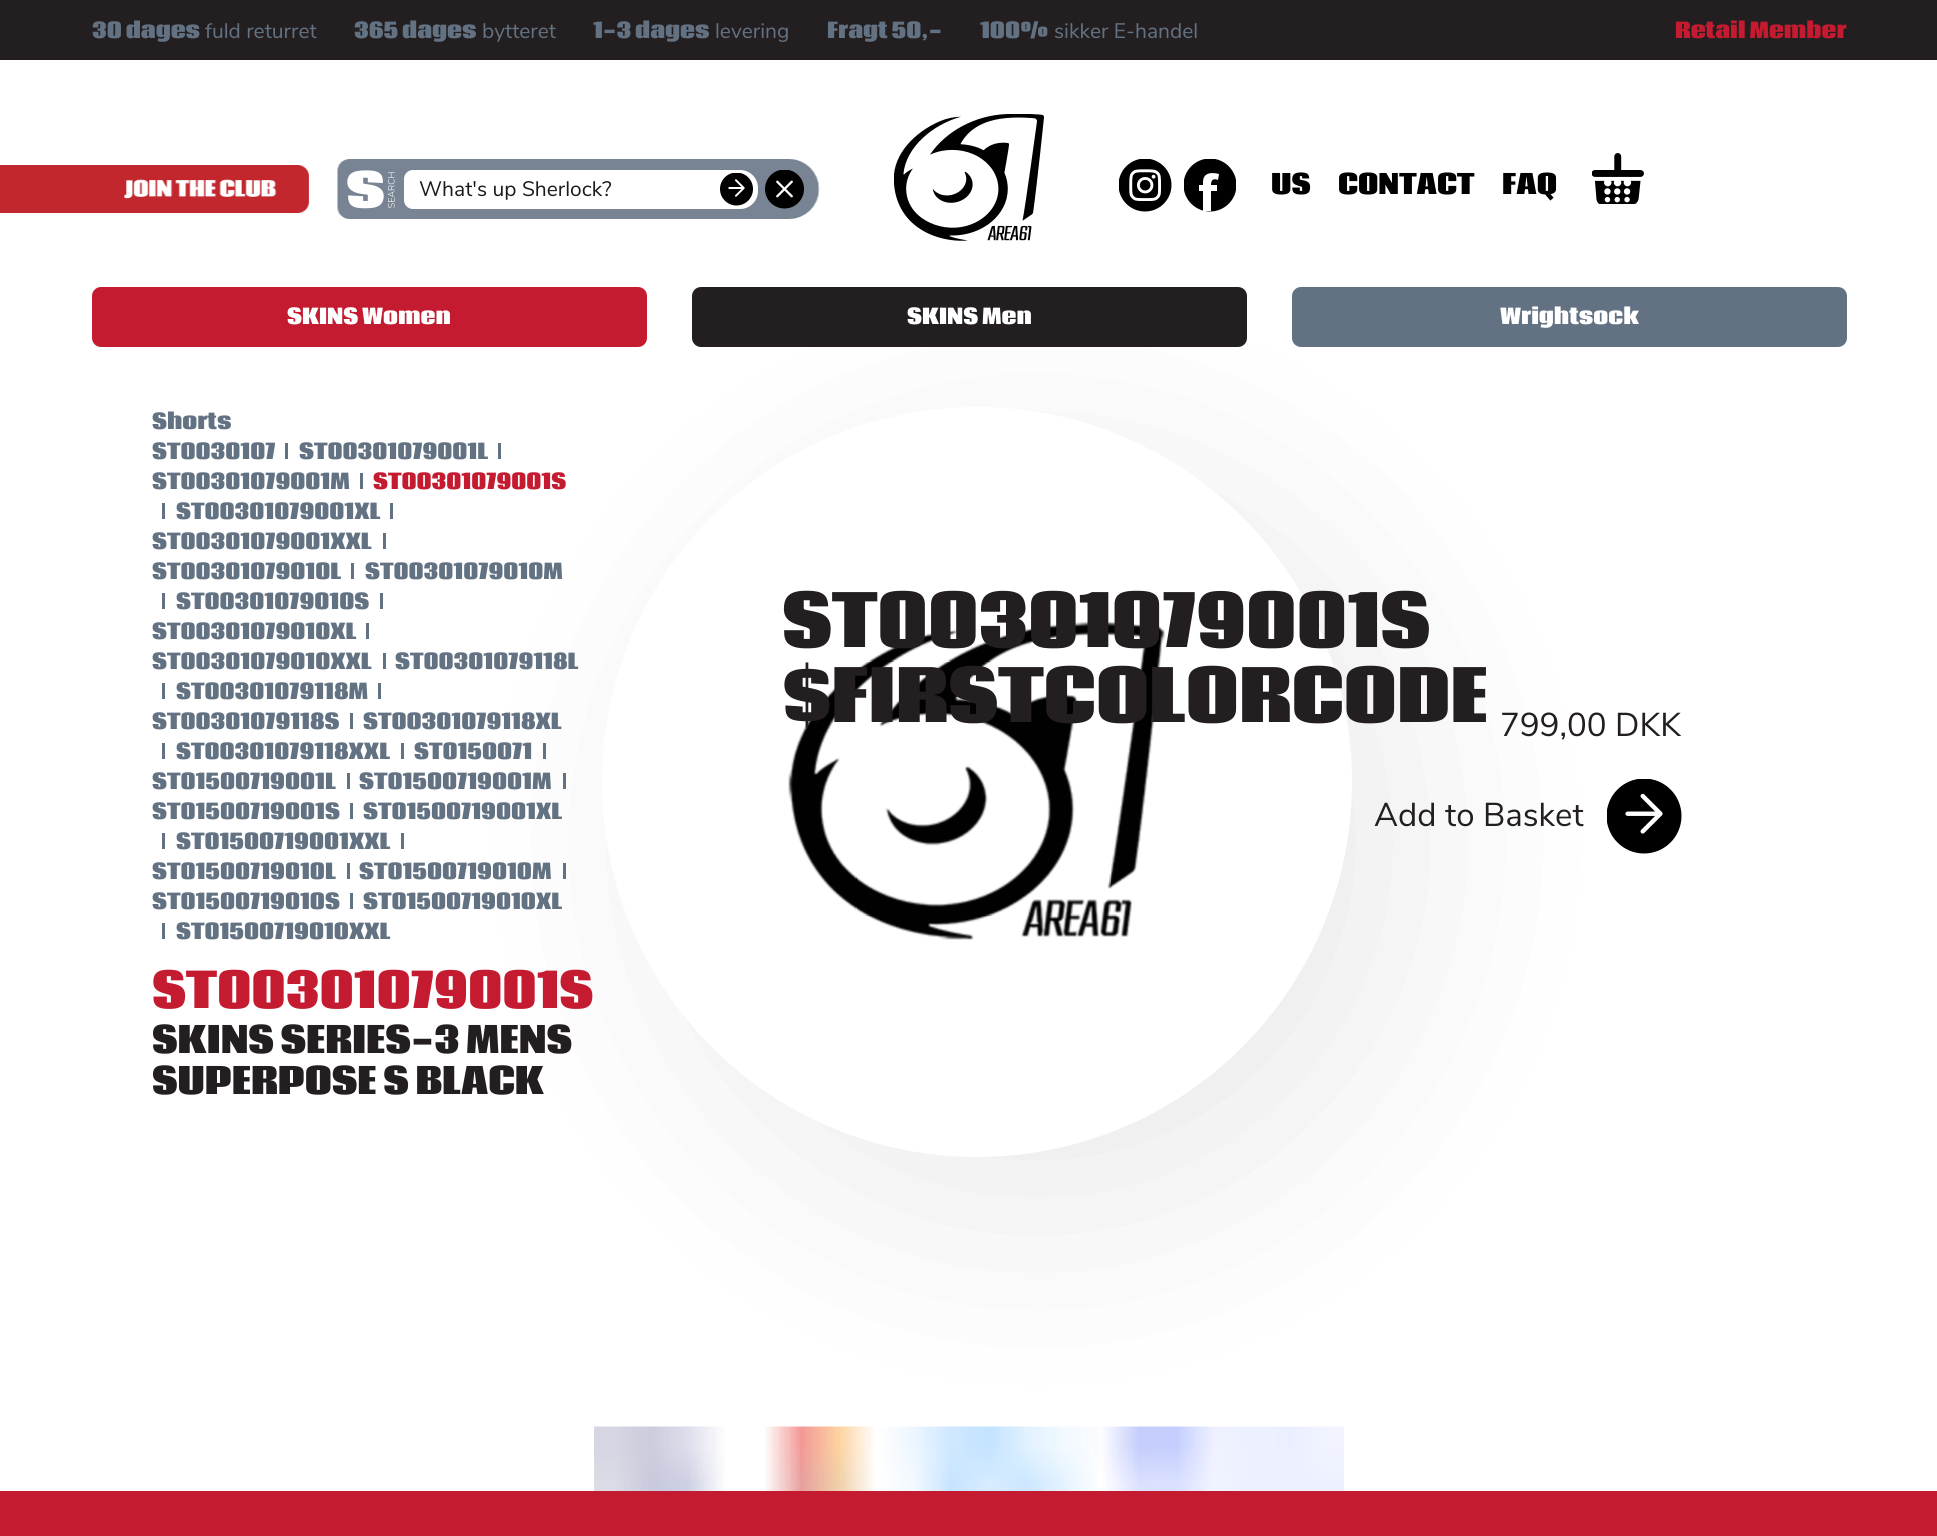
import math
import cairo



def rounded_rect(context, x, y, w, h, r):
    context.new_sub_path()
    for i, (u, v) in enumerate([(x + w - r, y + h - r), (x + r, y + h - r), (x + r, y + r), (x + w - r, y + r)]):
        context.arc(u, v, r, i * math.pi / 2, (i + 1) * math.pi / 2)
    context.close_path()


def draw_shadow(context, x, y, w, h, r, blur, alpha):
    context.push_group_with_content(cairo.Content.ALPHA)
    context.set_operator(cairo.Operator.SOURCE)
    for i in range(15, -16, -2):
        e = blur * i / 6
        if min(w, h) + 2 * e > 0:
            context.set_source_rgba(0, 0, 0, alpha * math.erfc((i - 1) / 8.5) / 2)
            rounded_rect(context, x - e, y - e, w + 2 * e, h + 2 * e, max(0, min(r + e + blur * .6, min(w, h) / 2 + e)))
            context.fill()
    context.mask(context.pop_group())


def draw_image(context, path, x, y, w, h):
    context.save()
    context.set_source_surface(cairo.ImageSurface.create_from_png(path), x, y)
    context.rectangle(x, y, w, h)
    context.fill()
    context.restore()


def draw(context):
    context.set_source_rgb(1, 1, 1)
    context.paint()
    context.set_source_rgb(35 / 255, 31 / 255, 32 / 255)
    context.rectangle(0, 0, 1937, 60)
    context.fill()
    context.set_source_rgb(193 / 255, 39 / 255, 45 / 255)
    context.rectangle(0, 165, 92, 48)
    context.fill()
    draw_image(context, "images/1.png", 92, 165, 217, 48)
    context.set_source_rgb(0, 0, 0)
    draw_shadow(context, 662, 467, 750, 750, 375, 112.5, 0.08)
    draw_image(context, "images/2.png", 337, 159, 483, 60)
    draw_image(context, "images/3.png", 347, 170, 48, 39)
    context.set_source_rgb(1, 1, 1)
    context.new_path()
    context.move_to(413, 170)
    context.line_to(740, 170)
    context.curve_to(750, 170, 758, 178, 758, 188)
    context.line_to(758, 191)
    context.curve_to(758, 201, 750, 209, 740, 209)
    context.line_to(413, 209)
    context.curve_to(408, 209, 404, 205, 404, 200)
    context.line_to(404, 179)
    context.curve_to(404, 174, 408, 170, 413, 170)
    context.close_path()
    context.fill()
    draw_image(context, "images/4.png", 720, 173, 33, 33)
    draw_image(context, "images/5.png", 765, 170, 39, 39)
    draw_image(context, "images/6.png", 894, 114, 150, 127)
    draw_image(context, "images/7.png", 1119, 159, 53, 53)
    context.save()
    context.rectangle(1184, 159, 52, 53)
    context.clip()
    context.set_source_rgb(0, 0, 0)
    context.arc(1210, 185, 26.5, 0, 2 * math.pi)
    context.fill()
    context.restore()
    context.new_path()
    context.move_to(1203, 182)
    context.line_to(1203, 185)
    context.line_to(1199, 185)
    context.line_to(1199, 191)
    context.line_to(1203, 191)
    context.line_to(1203, 211)
    context.line_to(1211, 211)
    context.line_to(1211, 191)
    context.line_to(1217, 191)
    context.line_to(1217, 185)
    context.line_to(1211, 185)
    context.curve_to(1211, 180, 1213, 178, 1218, 180)
    context.line_to(1219, 174)
    context.curve_to(1219, 174, 1203, 169, 1203, 182)
    context.close_path()
    context.fill()
    draw_image(context, "images/8.png", 1592, 153, 52, 51)
    context.set_source_rgb(196 / 255, 27 / 255, 48 / 255)
    rounded_rect(context, 92, 287, 555, 60, 9)
    context.fill()
    context.set_source_rgb(35 / 255, 31 / 255, 32 / 255)
    rounded_rect(context, 692, 287, 555, 60, 9)
    context.fill()
    context.set_source_rgb(99 / 255, 114 / 255, 131 / 255)
    rounded_rect(context, 1292, 287, 555, 60, 9)
    context.fill()
    context.rectangle(285, 443, 3, 16)
    context.fill()
    context.rectangle(498, 443, 3, 16)
    context.fill()
    context.rectangle(360, 473, 3, 16)
    context.fill()
    context.rectangle(162, 503, 3, 16)
    context.fill()
    context.rectangle(390, 503, 3, 16)
    context.fill()
    context.rectangle(383, 533, 3, 16)
    context.fill()
    context.rectangle(351, 563, 3, 16)
    context.fill()
    context.rectangle(162, 593, 3, 16)
    context.fill()
    context.rectangle(380, 593, 3, 16)
    context.fill()
    context.rectangle(366, 623, 3, 16)
    context.fill()
    context.rectangle(383, 653, 3, 16)
    context.fill()
    context.rectangle(162, 683, 3, 16)
    context.fill()
    context.rectangle(378, 683, 3, 16)
    context.fill()
    context.rectangle(350, 713, 3, 16)
    context.fill()
    context.rectangle(162, 743, 3, 16)
    context.fill()
    context.rectangle(401, 743, 3, 16)
    context.fill()
    context.rectangle(543, 743, 3, 16)
    context.fill()
    context.rectangle(347, 773, 3, 16)
    context.fill()
    context.rectangle(563, 773, 3, 16)
    context.fill()
    context.rectangle(350, 803, 3, 16)
    context.fill()
    context.rectangle(162, 833, 3, 16)
    context.fill()
    context.rectangle(401, 833, 3, 16)
    context.fill()
    context.rectangle(347, 863, 3, 16)
    context.fill()
    context.rectangle(563, 863, 3, 16)
    context.fill()
    context.rectangle(350, 893, 3, 16)
    context.fill()
    context.rectangle(162, 923, 3, 16)
    context.fill()
    context.set_source_rgb(1, 1, 1)
    context.arc(977, 782, 375, 0, 2 * math.pi)
    context.fill()
    draw_image(context, "images/9.png", 788, 621, 377, 319)
    draw_image(context, "images/10.png", 1607, 779, 75, 75)
    draw_image(context, "images/11.png", 594, 1426, 750, 65)
    context.set_source_rgb(196 / 255, 27 / 255, 48 / 255)
    context.rectangle(0, 1491, 1937, 45)
    context.fill()
    context.select_font_face("Coda ExtraBold")
    context.set_font_size(21)
    context.set_source_rgb(99 / 255, 114 / 255, 131 / 255)
    context.move_to(92, 38)
    context.show_text("30 dages")
    context.select_font_face("Nunito Sans")
    context.move_to(205, 38)
    context.show_text("fuld returret")
    context.select_font_face("Coda ExtraBold")
    context.move_to(354, 38)
    context.show_text("365 dages")
    context.select_font_face("Nunito Sans")
    context.move_to(482, 38)
    context.show_text("bytteret")
    context.select_font_face("Coda ExtraBold")
    context.move_to(593, 38)
    context.show_text("1-3 dages")
    context.select_font_face("Nunito Sans")
    context.move_to(715, 38)
    context.show_text("levering")
    context.select_font_face("Coda ExtraBold")
    context.move_to(827, 38)
    context.show_text("Fragt 50,-")
    context.move_to(980, 38)
    context.show_text("100%")
    context.select_font_face("Nunito Sans")
    context.move_to(1054, 38)
    context.show_text("sikker E-handel")
    context.select_font_face("Coda ExtraBold")
    context.set_source_rgb(196 / 255, 27 / 255, 48 / 255)
    context.move_to(1675, 38)
    context.show_text("Retail Member")
    context.select_font_face("Nunito Sans")
    context.set_source_rgb(25 / 255, 28 / 255, 25 / 255)
    context.move_to(419, 196)
    context.show_text("What's up Sherlock?")
    context.select_font_face("Coda ExtraBold")
    context.set_font_size(27)
    context.set_source_rgb(0, 0, 0)
    context.move_to(1271, 194)
    context.show_text("US")
    context.move_to(1338, 194)
    context.show_text("CONTACT")
    context.move_to(1502, 194)
    context.show_text("FAQ")
    context.set_font_size(21)
    context.set_source_rgb(1, 1, 1)
    context.move_to(287, 324)
    context.show_text("SKINS Women")
    context.move_to(907, 324)
    context.show_text("SKINS Men")
    context.move_to(1500, 324)
    context.show_text("Wrightsock")
    context.set_source_rgb(99 / 255, 114 / 255, 131 / 255)
    context.move_to(152, 429)
    context.show_text("Shorts")
    context.move_to(152, 459)
    context.show_text("ST0030107")
    context.move_to(299, 459)
    context.show_text("ST00301079001L")
    context.move_to(152, 489)
    context.show_text("ST00301079001M")
    context.set_source_rgb(196 / 255, 27 / 255, 48 / 255)
    context.move_to(373, 489)
    context.show_text("ST00301079001S")
    context.set_source_rgb(99 / 255, 114 / 255, 131 / 255)
    context.move_to(176, 519)
    context.show_text("ST00301079001XL")
    context.move_to(152, 549)
    context.show_text("ST00301079001XXL")
    context.move_to(152, 579)
    context.show_text("ST00301079010L")
    context.move_to(365, 579)
    context.show_text("ST00301079010M")
    context.move_to(176, 609)
    context.show_text("ST00301079010S")
    context.move_to(152, 639)
    context.show_text("ST00301079010XL")
    context.move_to(152, 669)
    context.show_text("ST00301079010XXL")
    context.move_to(395, 669)
    context.show_text("ST00301079118L")
    context.move_to(176, 699)
    context.show_text("ST00301079118M")
    context.move_to(152, 729)
    context.show_text("ST00301079118S")
    context.move_to(363, 729)
    context.show_text("ST00301079118XL")
    context.move_to(176, 759)
    context.show_text("ST00301079118XXL")
    context.move_to(414, 759)
    context.show_text("ST0150071")
    context.move_to(152, 789)
    context.show_text("ST01500719001L")
    context.move_to(359, 789)
    context.show_text("ST01500719001M")
    context.move_to(152, 819)
    context.show_text("ST01500719001S")
    context.move_to(363, 819)
    context.show_text("ST01500719001XL")
    context.move_to(176, 849)
    context.show_text("ST01500719001XXL")
    context.move_to(152, 879)
    context.show_text("ST01500719010L")
    context.move_to(359, 879)
    context.show_text("ST01500719010M")
    context.move_to(152, 909)
    context.show_text("ST01500719010S")
    context.move_to(363, 909)
    context.show_text("ST01500719010XL")
    context.move_to(176, 939)
    context.show_text("ST01500719010XXL")
    context.set_font_size(48)
    context.set_source_rgb(196 / 255, 27 / 255, 48 / 255)
    context.move_to(152, 1008)
    context.show_text("ST00301079001S")
    context.set_font_size(36)
    context.set_source_rgb(35 / 255, 31 / 255, 32 / 255)
    context.move_to(152, 1053)
    context.show_text("SKINS SERIES-3 MENS")
    context.move_to(152, 1094)
    context.show_text("SUPERPOSE S BLACK")
    context.set_font_size(70.5)
    context.move_to(782, 647)
    context.show_text("ST00301079001S")
    context.move_to(782, 722)
    context.show_text("$FIRSTCOLORCODE")
    context.select_font_face("Nunito Sans")
    context.set_font_size(33)
    context.move_to(1500, 736)
    context.show_text("799,00 DKK")
    context.move_to(1374, 826)
    context.show_text("Add to Basket")


surface = cairo.ImageSurface(cairo.Format.RGB24, 1937, 1536)
context = cairo.Context(surface)
options = cairo.FontOptions()
options.set_hint_metrics(cairo.HintMetrics.OFF)
options.set_hint_style(cairo.HintStyle.NONE)
context.set_font_options(options)
context.set_miter_limit(4)
draw(context)
surface.write_to_png("out.png")
